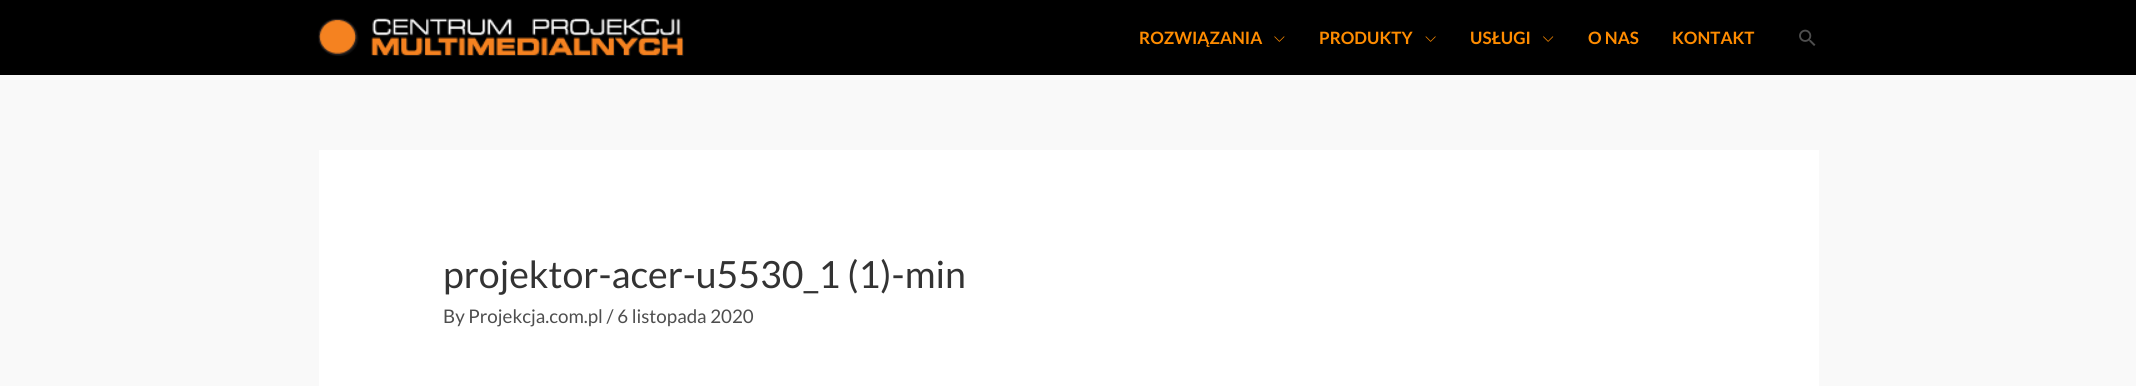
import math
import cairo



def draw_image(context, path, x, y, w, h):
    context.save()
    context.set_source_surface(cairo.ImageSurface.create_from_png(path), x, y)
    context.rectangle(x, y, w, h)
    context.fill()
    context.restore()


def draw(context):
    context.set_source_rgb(249 / 255, 249 / 255, 249 / 255)
    context.paint()
    context.set_source_rgb(0, 0, 0)
    context.rectangle(0, 0, 2136, 75)
    context.fill()
    draw_image(context, "images/1.png", 318, 18, 366, 38)
    draw_image(context, "images/2.png", 1274, 36, 11, 6)
    draw_image(context, "images/3.png", 1425, 36, 11, 6)
    draw_image(context, "images/4.png", 1543, 36, 11, 6)
    draw_image(context, "images/5.png", 1799, 29, 17, 17)
    context.set_source_rgb(1, 1, 1)
    context.rectangle(319, 150, 1500, 236)
    context.fill()
    context.select_font_face("Lato", cairo.FontSlant.NORMAL, cairo.FontWeight.BOLD)
    context.set_font_size(17)
    context.set_source_rgb(1, 140 / 255, 0)
    context.move_to(1139, 44)
    context.show_text("ROZWIĄZANIA")
    context.move_to(1319, 44)
    context.show_text("PRODUKTY")
    context.move_to(1470, 44)
    context.show_text("USŁUGI")
    context.move_to(1588, 44)
    context.show_text("O NAS")
    context.move_to(1672, 44)
    context.show_text("KONTAKT")
    context.select_font_face("Lato")
    context.set_font_size(37.5)
    context.set_source_rgb(51 / 255, 51 / 255, 51 / 255)
    context.move_to(443, 288)
    context.show_text("projektor-acer-u5530_1 (1)-min")
    context.set_font_size(18.75)
    context.set_source_rgb(78 / 255, 78 / 255, 78 / 255)
    context.move_to(443, 323)
    context.show_text("By Projekcja.com.pl / 6 listopada 2020")


surface = cairo.ImageSurface(cairo.Format.RGB24, 2136, 386)
context = cairo.Context(surface)
options = cairo.FontOptions()
options.set_hint_metrics(cairo.HintMetrics.OFF)
options.set_hint_style(cairo.HintStyle.NONE)
context.set_font_options(options)
context.set_miter_limit(4)
draw(context)
surface.write_to_png("out.png")
